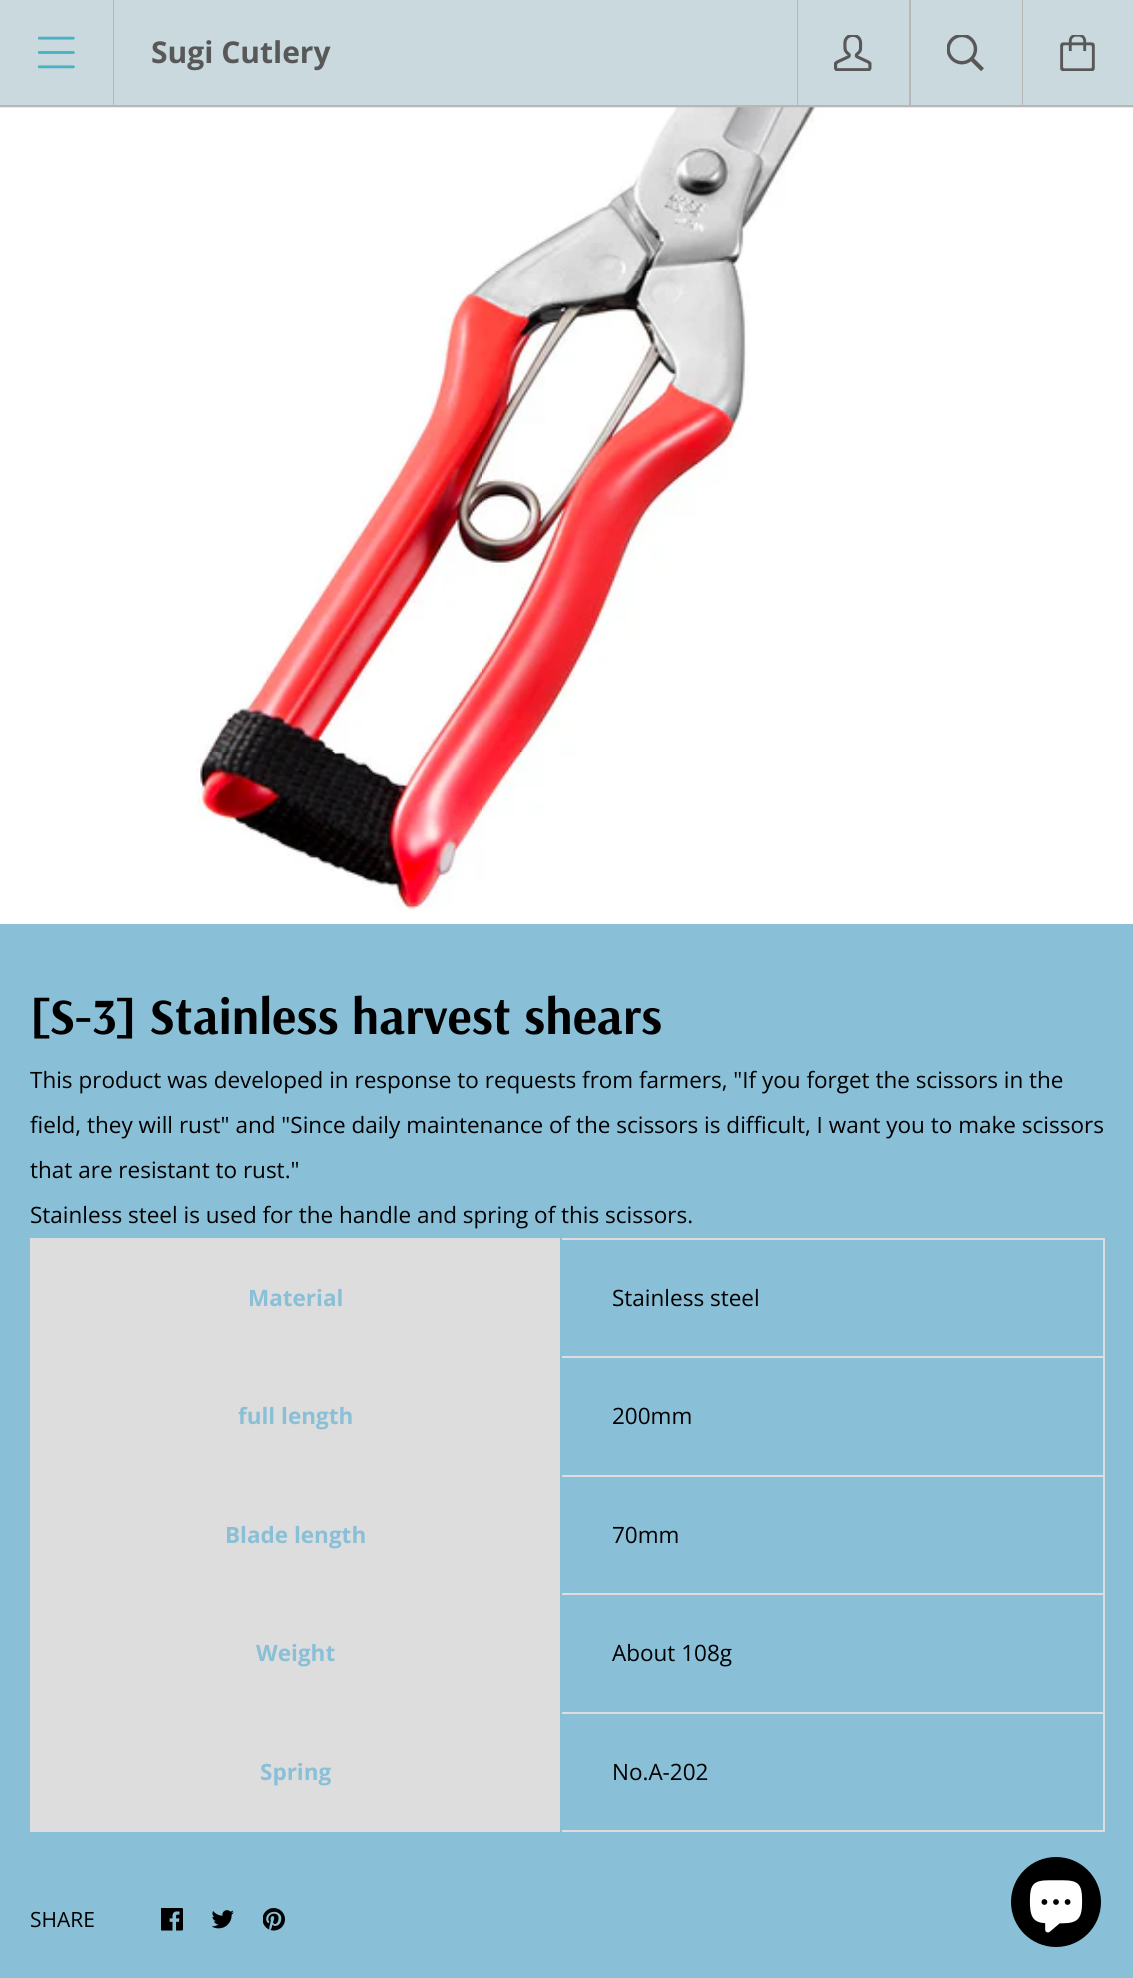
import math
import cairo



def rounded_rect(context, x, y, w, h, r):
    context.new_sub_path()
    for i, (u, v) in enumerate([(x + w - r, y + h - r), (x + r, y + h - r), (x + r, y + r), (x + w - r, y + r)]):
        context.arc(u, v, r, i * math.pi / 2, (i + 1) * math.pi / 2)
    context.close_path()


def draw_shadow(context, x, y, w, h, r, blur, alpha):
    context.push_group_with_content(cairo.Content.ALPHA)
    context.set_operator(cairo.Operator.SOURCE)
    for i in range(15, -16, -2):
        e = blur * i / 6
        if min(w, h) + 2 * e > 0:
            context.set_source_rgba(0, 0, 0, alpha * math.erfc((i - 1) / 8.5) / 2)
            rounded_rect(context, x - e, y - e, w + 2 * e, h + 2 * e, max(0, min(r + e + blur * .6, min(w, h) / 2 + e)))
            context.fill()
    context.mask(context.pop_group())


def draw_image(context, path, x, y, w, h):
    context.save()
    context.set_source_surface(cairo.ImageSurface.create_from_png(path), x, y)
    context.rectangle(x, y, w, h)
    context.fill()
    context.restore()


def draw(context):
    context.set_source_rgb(137 / 255, 191 / 255, 215 / 255)
    context.paint()
    draw_image(context, "images/5.png", 0, 107, 1133, 817)
    context.set_source_rgba(183 / 255, 183 / 255, 183 / 255, 0.3)
    context.rectangle(0, 107, 1133, 1)
    context.fill()
    context.set_source_rgb(201 / 255, 217 / 255, 222 / 255)
    context.rectangle(0, 0, 1022, 105)
    context.fill()
    context.set_source_rgb(183 / 255, 183 / 255, 183 / 255)
    context.rectangle(0, 105, 1133, 2)
    context.fill()
    draw_image(context, "images/1.png", 38, 36, 37, 33)
    context.rectangle(113, 0, 1, 105)
    context.fill()
    context.rectangle(797, 0, 1, 105)
    context.fill()
    draw_image(context, "images/2.png", 834, 35, 38, 36)
    context.rectangle(909, 0, 2, 105)
    context.fill()
    draw_image(context, "images/3.png", 947, 35, 37, 36)
    context.rectangle(1022, 0, 1, 105)
    context.fill()
    context.set_source_rgb(201 / 255, 217 / 255, 222 / 255)
    context.rectangle(1023, 0, 110, 105)
    context.fill()
    draw_image(context, "images/4.png", 1060, 35, 35, 36)
    context.set_source_rgb(221 / 255, 221 / 255, 221 / 255)
    context.rectangle(30, 1238, 1074, 2)
    context.fill()
    context.rectangle(30, 1356, 1074, 2)
    context.fill()
    context.rectangle(30, 1475, 1074, 2)
    context.fill()
    context.rectangle(30, 1593, 1074, 2)
    context.fill()
    context.rectangle(30, 1712, 1074, 2)
    context.fill()
    context.rectangle(1103, 1712, 2, 120)
    context.fill()
    context.rectangle(1103, 1593, 2, 120)
    context.fill()
    context.rectangle(1103, 1475, 2, 120)
    context.fill()
    context.rectangle(1103, 1356, 2, 120)
    context.fill()
    context.rectangle(1103, 1238, 2, 120)
    context.fill()
    context.rectangle(30, 1830, 1074, 2)
    context.fill()
    context.rectangle(30, 1712, 2, 120)
    context.fill()
    context.rectangle(30, 1593, 2, 120)
    context.fill()
    context.rectangle(30, 1475, 2, 120)
    context.fill()
    context.rectangle(30, 1356, 2, 120)
    context.fill()
    context.rectangle(30, 1238, 2, 120)
    context.fill()
    context.rectangle(32, 1240, 528, 116)
    context.fill()
    context.set_source_rgb(137 / 255, 191 / 255, 215 / 255)
    context.rectangle(560, 1238, 2, 2)
    context.fill()
    context.set_source_rgb(221 / 255, 221 / 255, 221 / 255)
    context.rectangle(32, 1358, 528, 117)
    context.fill()
    context.set_source_rgb(137 / 255, 191 / 255, 215 / 255)
    context.rectangle(560, 1356, 2, 2)
    context.fill()
    context.set_source_rgb(221 / 255, 221 / 255, 221 / 255)
    context.rectangle(32, 1477, 528, 116)
    context.fill()
    context.set_source_rgb(137 / 255, 191 / 255, 215 / 255)
    context.rectangle(560, 1475, 2, 2)
    context.fill()
    context.set_source_rgb(221 / 255, 221 / 255, 221 / 255)
    context.rectangle(32, 1595, 528, 117)
    context.fill()
    context.set_source_rgb(137 / 255, 191 / 255, 215 / 255)
    context.rectangle(560, 1593, 2, 2)
    context.fill()
    context.set_source_rgb(221 / 255, 221 / 255, 221 / 255)
    context.rectangle(32, 1714, 528, 116)
    context.fill()
    context.set_source_rgb(137 / 255, 191 / 255, 215 / 255)
    context.rectangle(560, 1712, 2, 120)
    context.fill()
    draw_image(context, "images/6.png", 161, 1908, 22, 23)
    draw_image(context, "images/7.png", 212, 1910, 22, 19)
    draw_image(context, "images/8.png", 263, 1908, 22, 23)
    context.set_source_rgb(0, 0, 0)
    draw_shadow(context, 1022, 1860, 75, 75, 37.5, 1, 0.6)
    context.set_source_rgb(0, 0, 0)
    context.arc(1056, 1902, 45, 0, 2 * math.pi)
    context.fill()
    draw_image(context, "images/9.png", 1029, 1880, 54, 53)
    context.select_font_face("Open Sans", cairo.FontSlant.NORMAL, cairo.FontWeight.BOLD)
    context.set_font_size(30)
    context.set_source_rgb(88 / 255, 88 / 255, 88 / 255)
    context.move_to(151, 63)
    context.show_text("Sugi Cutlery")
    context.select_font_face("Arsenal", cairo.FontSlant.NORMAL, cairo.FontWeight.BOLD)
    context.set_font_size(51)
    context.set_source_rgb(0, 0, 0)
    context.move_to(30, 1034)
    context.show_text("[S-3] Stainless harvest shears")
    context.select_font_face("Open Sans")
    context.set_font_size(22.5)
    context.move_to(30, 1088)
    context.show_text("This product was developed in response to requests from farmers, \"If you forget the scissors in the")
    context.move_to(30, 1133)
    context.show_text("field, they will rust\" and \"Since daily maintenance of the scissors is difficult, I want you to make scissors")
    context.move_to(30, 1178)
    context.show_text("that are resistant to rust.\"")
    context.move_to(30, 1223)
    context.show_text("Stainless steel is used for the handle and spring of this scissors.")
    context.select_font_face("Open Sans", cairo.FontSlant.NORMAL, cairo.FontWeight.BOLD)
    context.set_source_rgb(137 / 255, 191 / 255, 215 / 255)
    context.move_to(248, 1306)
    context.show_text("Material")
    context.select_font_face("Open Sans")
    context.set_source_rgb(0, 0, 0)
    context.move_to(612, 1306)
    context.show_text("Stainless steel")
    context.select_font_face("Open Sans", cairo.FontSlant.NORMAL, cairo.FontWeight.BOLD)
    context.set_source_rgb(137 / 255, 191 / 255, 215 / 255)
    context.move_to(238, 1424)
    context.show_text("full length")
    context.select_font_face("Open Sans")
    context.set_source_rgb(0, 0, 0)
    context.move_to(612, 1424)
    context.show_text("200mm")
    context.select_font_face("Open Sans", cairo.FontSlant.NORMAL, cairo.FontWeight.BOLD)
    context.set_source_rgb(137 / 255, 191 / 255, 215 / 255)
    context.move_to(225, 1543)
    context.show_text("Blade length")
    context.select_font_face("Open Sans")
    context.set_source_rgb(0, 0, 0)
    context.move_to(612, 1543)
    context.show_text("70mm")
    context.select_font_face("Open Sans", cairo.FontSlant.NORMAL, cairo.FontWeight.BOLD)
    context.set_source_rgb(137 / 255, 191 / 255, 215 / 255)
    context.move_to(256, 1661)
    context.show_text("Weight")
    context.select_font_face("Open Sans")
    context.set_source_rgb(0, 0, 0)
    context.move_to(612, 1661)
    context.show_text("About 108g")
    context.select_font_face("Open Sans", cairo.FontSlant.NORMAL, cairo.FontWeight.BOLD)
    context.set_source_rgb(137 / 255, 191 / 255, 215 / 255)
    context.move_to(260, 1780)
    context.show_text("Spring")
    context.select_font_face("Open Sans")
    context.set_source_rgb(0, 0, 0)
    context.move_to(612, 1780)
    context.show_text("No.A-202")
    context.set_font_size(21)
    context.move_to(30, 1927)
    context.show_text("SHARE")


surface = cairo.ImageSurface(cairo.Format.RGB24, 1133, 1978)
context = cairo.Context(surface)
options = cairo.FontOptions()
options.set_hint_metrics(cairo.HintMetrics.OFF)
options.set_hint_style(cairo.HintStyle.NONE)
context.set_font_options(options)
context.set_miter_limit(4)
draw(context)
surface.write_to_png("out.png")
